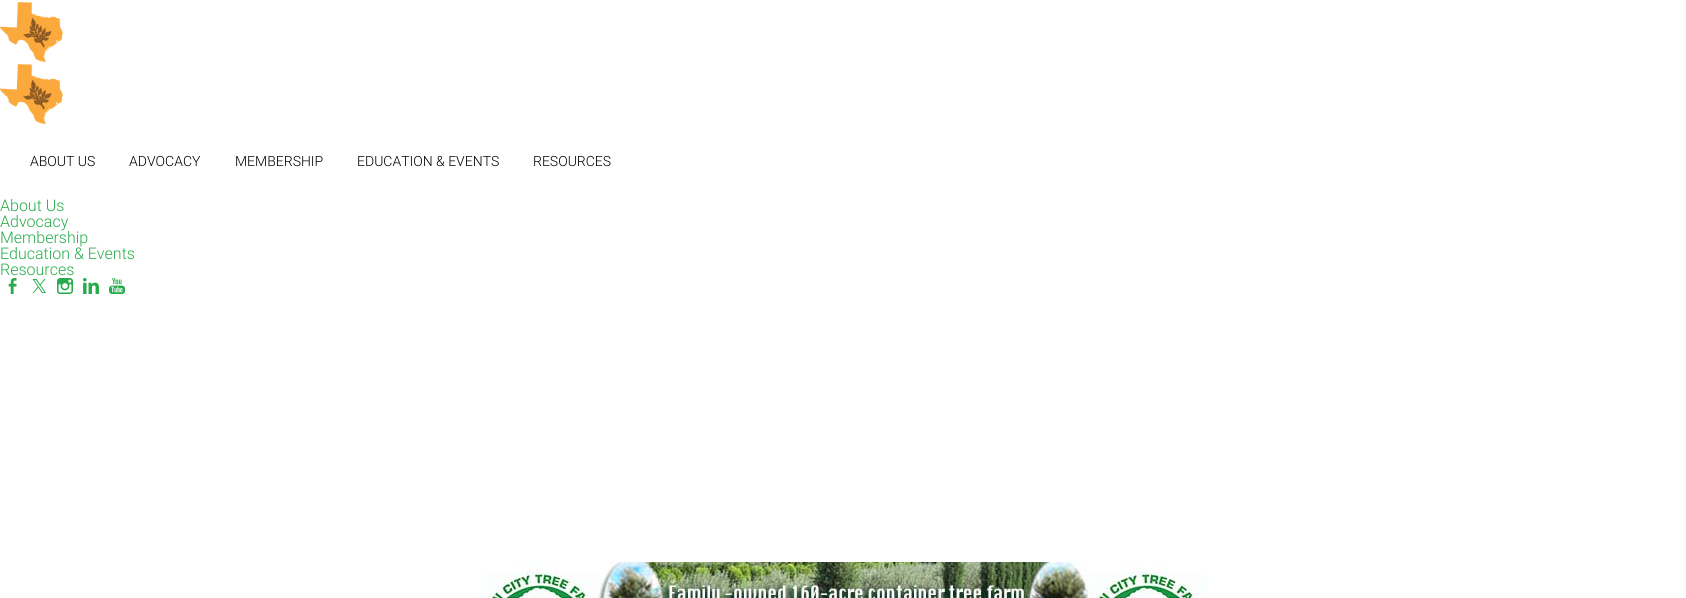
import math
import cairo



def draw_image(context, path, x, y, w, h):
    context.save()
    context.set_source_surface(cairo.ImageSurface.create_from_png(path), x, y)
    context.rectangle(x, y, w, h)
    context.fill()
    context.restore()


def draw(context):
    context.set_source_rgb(1, 1, 1)
    context.paint()
    draw_image(context, "images/1.png", 0, 2, 63, 60)
    draw_image(context, "images/1.png", 0, 64, 63, 60)
    draw_image(context, "images/2.png", 8, 278, 9, 16)
    draw_image(context, "images/3.png", 32, 279, 14, 14)
    draw_image(context, "images/4.png", 57, 278, 16, 16)
    draw_image(context, "images/5.png", 83, 278, 16, 16)
    draw_image(context, "images/6.png", 109, 278, 17, 16)
    draw_image(context, "images/7.png", 479, 562, 728, 36)
    context.select_font_face("Roboto Light")
    context.set_font_size(14)
    context.set_source_rgb(0, 0, 0)
    context.move_to(30, 166)
    context.show_text("ABOUT US")
    context.move_to(129, 166)
    context.show_text("ADVOCACY")
    context.move_to(235, 166)
    context.show_text("MEMBERSHIP")
    context.move_to(357, 166)
    context.show_text("EDUCATION & EVENTS")
    context.move_to(533, 166)
    context.show_text("RESOURCES")
    context.set_font_size(16)
    context.set_source_rgb(38 / 255, 172 / 255, 74 / 255)
    context.move_to(0, 211)
    context.show_text("About Us")
    context.move_to(0, 227)
    context.show_text("Advocacy")
    context.move_to(0, 243)
    context.show_text("Membership")
    context.move_to(0, 259)
    context.show_text("Education & Events")
    context.move_to(0, 275)
    context.show_text("Resources")


surface = cairo.ImageSurface(cairo.Format.RGB24, 1686, 598)
context = cairo.Context(surface)
options = cairo.FontOptions()
options.set_hint_metrics(cairo.HintMetrics.OFF)
options.set_hint_style(cairo.HintStyle.NONE)
context.set_font_options(options)
context.set_miter_limit(4)
draw(context)
surface.write_to_png("out.png")
